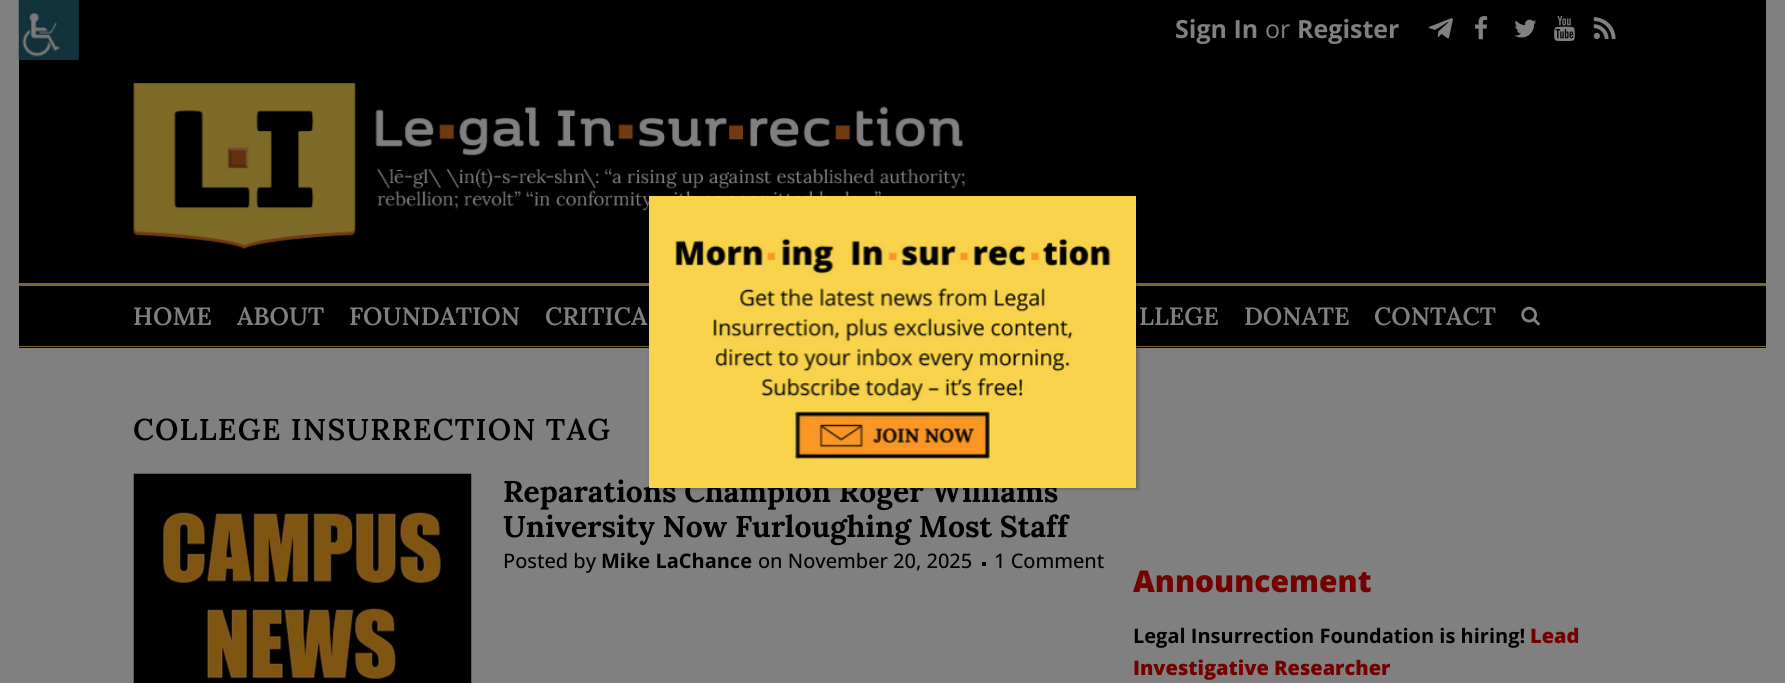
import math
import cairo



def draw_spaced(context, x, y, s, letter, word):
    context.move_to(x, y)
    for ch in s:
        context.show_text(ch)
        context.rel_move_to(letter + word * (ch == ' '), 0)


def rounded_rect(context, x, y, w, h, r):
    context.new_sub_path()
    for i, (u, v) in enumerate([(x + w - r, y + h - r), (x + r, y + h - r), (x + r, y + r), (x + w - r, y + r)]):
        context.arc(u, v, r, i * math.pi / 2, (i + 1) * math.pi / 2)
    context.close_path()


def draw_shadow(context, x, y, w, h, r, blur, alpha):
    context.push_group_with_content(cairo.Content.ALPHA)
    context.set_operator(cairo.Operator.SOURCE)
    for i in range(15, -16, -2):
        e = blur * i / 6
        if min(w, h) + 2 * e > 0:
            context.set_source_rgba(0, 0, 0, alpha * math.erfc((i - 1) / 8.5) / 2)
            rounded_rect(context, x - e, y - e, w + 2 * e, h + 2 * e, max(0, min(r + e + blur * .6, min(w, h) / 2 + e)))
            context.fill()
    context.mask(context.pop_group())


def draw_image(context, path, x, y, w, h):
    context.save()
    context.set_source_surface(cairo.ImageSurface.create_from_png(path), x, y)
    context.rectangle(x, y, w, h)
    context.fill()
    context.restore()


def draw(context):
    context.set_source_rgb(128 / 255, 128 / 255, 128 / 255)
    context.paint()
    context.set_source_rgb(0, 0, 0)
    context.rectangle(19, 0, 1747, 348)
    context.fill()
    draw_image(context, "images/1.png", 18, 0, 61, 60)
    draw_image(context, "images/2.png", 1428, 18, 25, 21)
    draw_image(context, "images/3.png", 1475, 16, 13, 24)
    draw_image(context, "images/4.png", 1514, 19, 23, 19)
    draw_image(context, "images/5.png", 1554, 16, 21, 26)
    draw_image(context, "images/6.png", 1593, 17, 23, 23)
    context.set_source_rgb(125 / 255, 106 / 255, 38 / 255)
    context.rectangle(19, 346, 1747, 1)
    context.fill()
    draw_image(context, "images/7.png", 133, 83, 832, 167)
    context.rectangle(19, 283, 1747, 3)
    context.fill()
    draw_image(context, "images/8.png", 1521, 306, 19, 20)
    draw_image(context, "images/9.png", 133, 473, 339, 210)
    context.set_source_rgb(0, 0, 0)
    context.rectangle(982, 562, 4, 4)
    context.fill()
    context.set_source_rgb(2 / 255, 2 / 255, 2 / 255)
    draw_shadow(context, 650, 198, 488, 291, 0, 2, 0.23)
    context.select_font_face("Open Sans", cairo.FontSlant.NORMAL, cairo.FontWeight.BOLD)
    context.set_font_size(25)
    context.set_source_rgb(128 / 255, 128 / 255, 128 / 255)
    context.move_to(1175, 38)
    context.show_text("Sign In")
    context.select_font_face("Open Sans")
    context.move_to(1265, 38)
    context.show_text("or")
    context.select_font_face("Open Sans", cairo.FontSlant.NORMAL, cairo.FontWeight.BOLD)
    context.move_to(1297, 38)
    context.show_text("Register")
    context.select_font_face("Lora SemiBold")
    context.move_to(133, 325)
    context.show_text("HOME")
    context.move_to(237, 325)
    context.show_text("ABOUT")
    context.move_to(349, 325)
    context.show_text("FOUNDATION")
    context.move_to(545, 325)
    context.show_text("CRITICA")
    context.move_to(1139, 325)
    context.show_text("LLEGE")
    context.move_to(1244, 325)
    context.show_text("DONATE")
    context.move_to(1374, 325)
    context.show_text("CONTACT")
    context.set_font_size(30)
    context.set_source_rgb(0, 0, 0)
    draw_spaced(context, 133, 440, "COLLEGE INSURRECTION TAG", 1.25, 0)
    context.select_font_face("Lora", cairo.FontSlant.NORMAL, cairo.FontWeight.BOLD)
    context.move_to(503, 502)
    context.show_text("Reparations Champion Roger Williams")
    context.move_to(503, 537)
    context.show_text("University Now Furloughing Most Staff")
    context.select_font_face("Open Sans Medium")
    context.set_font_size(20)
    context.move_to(503, 568)
    context.show_text("Posted by")
    context.select_font_face("Open Sans", cairo.FontSlant.NORMAL, cairo.FontWeight.BOLD)
    context.move_to(601, 568)
    context.show_text("Mike LaChance")
    context.select_font_face("Open Sans Medium")
    context.move_to(758, 568)
    context.show_text("on November 20, 2025")
    context.move_to(994, 568)
    context.show_text("1 Comment")
    context.select_font_face("Open Sans ExtraBold")
    context.set_font_size(30)
    context.set_source_rgb(114 / 255, 1 / 255, 0)
    context.move_to(1133, 592)
    context.show_text("Announcement")
    context.select_font_face("Open Sans", cairo.FontSlant.NORMAL, cairo.FontWeight.BOLD)
    context.set_font_size(20)
    context.set_source_rgb(0, 0, 0)
    context.move_to(1133, 643)
    context.show_text("Legal Insurrection Foundation is hiring!")
    context.select_font_face("Open Sans ExtraBold")
    context.set_source_rgb(114 / 255, 1 / 255, 0)
    context.move_to(1530, 643)
    context.show_text("Lead")
    context.move_to(1133, 675)
    context.show_text("Investigative Researcher")
    context.set_source_rgb(249 / 255, 211 / 255, 76 / 255)
    context.rectangle(649, 196, 487, 292)
    context.fill()
    draw_image(context, "images/10.png", 674, 238, 437, 222)


surface = cairo.ImageSurface(cairo.Format.RGB24, 1785, 683)
context = cairo.Context(surface)
options = cairo.FontOptions()
options.set_hint_metrics(cairo.HintMetrics.OFF)
options.set_hint_style(cairo.HintStyle.NONE)
context.set_font_options(options)
context.set_miter_limit(4)
draw(context)
surface.write_to_png("out.png")
